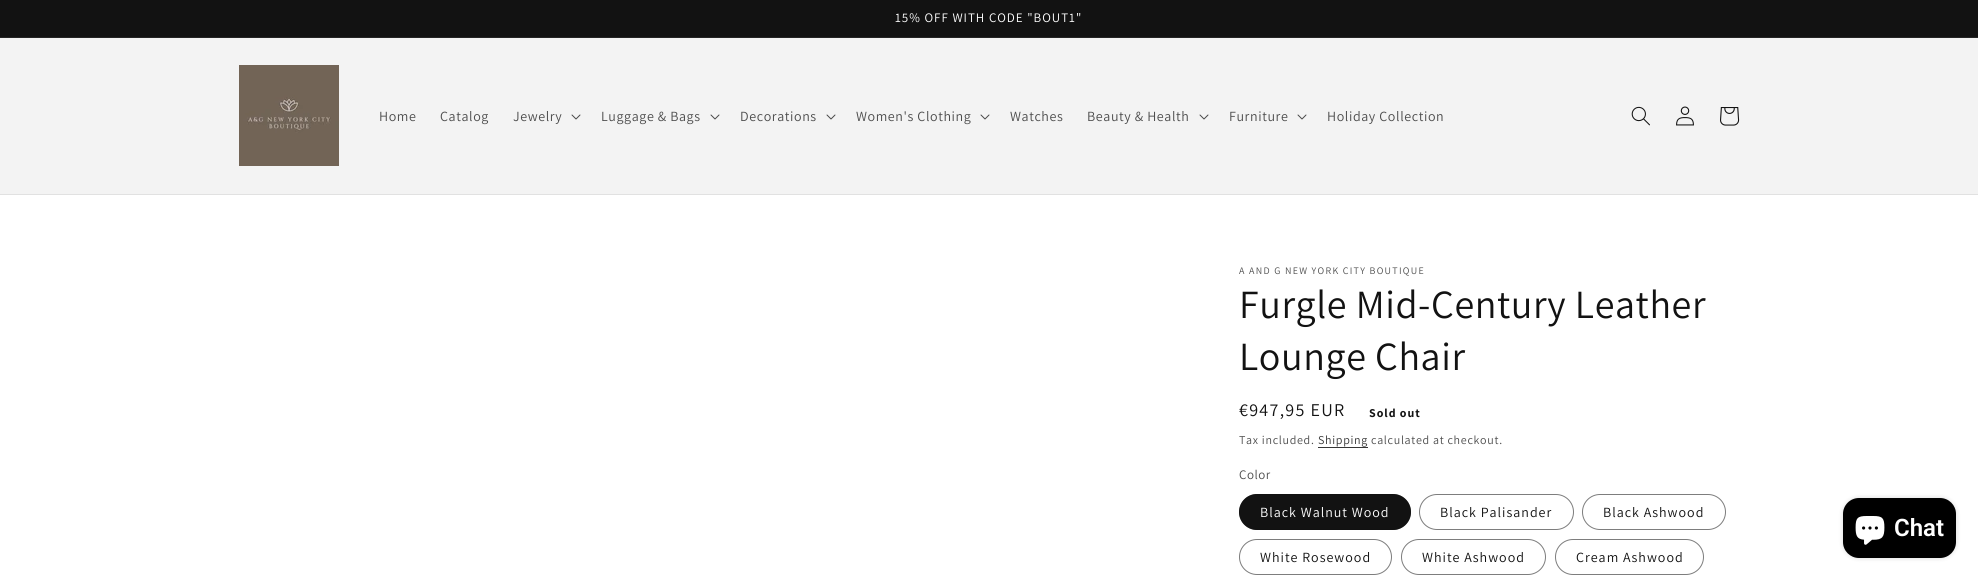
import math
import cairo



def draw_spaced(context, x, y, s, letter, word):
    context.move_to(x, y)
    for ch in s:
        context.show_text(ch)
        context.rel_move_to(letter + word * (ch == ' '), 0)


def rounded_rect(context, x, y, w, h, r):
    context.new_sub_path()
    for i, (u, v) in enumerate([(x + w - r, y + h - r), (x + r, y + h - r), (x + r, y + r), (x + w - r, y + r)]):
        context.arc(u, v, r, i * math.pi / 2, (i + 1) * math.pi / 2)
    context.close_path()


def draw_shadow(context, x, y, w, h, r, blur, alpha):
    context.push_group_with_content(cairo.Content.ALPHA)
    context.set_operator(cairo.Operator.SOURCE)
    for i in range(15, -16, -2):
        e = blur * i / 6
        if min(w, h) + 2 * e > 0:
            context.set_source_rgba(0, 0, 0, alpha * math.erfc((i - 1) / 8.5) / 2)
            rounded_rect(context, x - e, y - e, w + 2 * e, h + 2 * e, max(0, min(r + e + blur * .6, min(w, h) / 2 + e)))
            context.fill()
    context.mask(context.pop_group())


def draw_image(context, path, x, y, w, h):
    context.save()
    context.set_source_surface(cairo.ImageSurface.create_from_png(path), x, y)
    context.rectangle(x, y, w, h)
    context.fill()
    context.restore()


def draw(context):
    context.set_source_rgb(1, 1, 1)
    context.paint()
    context.set_source_rgb(18 / 255, 18 / 255, 18 / 255)
    context.rectangle(0, 0, 1978, 37)
    context.fill()
    context.set_source_rgb(37 / 255, 37 / 255, 37 / 255)
    context.rectangle(0, 37, 1978, 1)
    context.fill()
    context.set_source_rgb(243 / 255, 243 / 255, 243 / 255)
    context.rectangle(0, 38, 1978, 156)
    context.fill()
    context.set_source_rgb(225 / 255, 225 / 255, 225 / 255)
    context.rectangle(0, 194, 1978, 1)
    context.fill()
    draw_image(context, "images/1.png", 239, 65, 100, 101)
    draw_image(context, "images/2.png", 571, 114, 10, 6)
    draw_image(context, "images/2.png", 710, 114, 10, 6)
    draw_image(context, "images/2.png", 826, 114, 10, 6)
    draw_image(context, "images/2.png", 980, 114, 10, 6)
    draw_image(context, "images/2.png", 1199, 114, 10, 6)
    draw_image(context, "images/2.png", 1297, 114, 10, 6)
    draw_image(context, "images/3.png", 1631, 106, 19, 20)
    draw_image(context, "images/4.png", 1676, 106, 18, 20)
    draw_image(context, "images/5.png", 1720, 107, 20, 19)
    context.set_source_rgb(54 / 255, 54 / 255, 54 / 255)
    context.rectangle(1318, 447, 50, 1)
    context.fill()
    context.set_source_rgb(18 / 255, 18 / 255, 18 / 255)
    rounded_rect(context, 1239, 494, 172, 36, 18)
    context.fill()
    rounded_rect(context, 1239.5, 494.5, 171, 35, 17.5)
    context.set_source_rgba(18 / 255, 18 / 255, 18 / 255, 0.55)
    context.set_line_width(1)
    context.stroke()
    rounded_rect(context, 1419.5, 494.5, 154, 35, 17.5)
    context.set_source_rgb(125 / 255, 125 / 255, 125 / 255)
    context.stroke()
    rounded_rect(context, 1582.5, 494.5, 143, 35, 17.5)
    context.stroke()
    rounded_rect(context, 1239.5, 539.5, 152, 35, 17.5)
    context.stroke()
    rounded_rect(context, 1401.5, 539.5, 144, 35, 17.5)
    context.stroke()
    rounded_rect(context, 1555.5, 539.5, 148, 35, 17.5)
    context.stroke()
    context.set_source_rgb(0, 0, 0)
    draw_shadow(context, 1843, 498, 113, 60, 16, 2.5, 0.15)
    context.set_source_rgb(0, 0, 0)
    rounded_rect(context, 1843, 498, 113, 60, 16)
    context.fill()
    draw_image(context, "images/6.png", 1855, 516, 30, 29)
    context.select_font_face("Assistant")
    context.set_font_size(13)
    context.set_source_rgb(1, 1, 1)
    draw_spaced(context, 895, 22, "15% OFF WITH CODE \"BOUT1\"", 1, 0)
    context.set_font_size(14)
    context.set_source_rgb(77 / 255, 77 / 255, 77 / 255)
    draw_spaced(context, 379, 121, "Home", 0.6, 0)
    draw_spaced(context, 440, 121, "Catalog", 0.6, 0)
    draw_spaced(context, 513, 121, "Jewelry", 0.6, 0)
    draw_spaced(context, 601, 121, "Luggage & Bags", 0.6, 0)
    draw_spaced(context, 740, 121, "Decorations", 0.6, 0)
    draw_spaced(context, 856, 121, "Women's Clothing", 0.6, 0)
    draw_spaced(context, 1010, 121, "Watches", 0.6, 0)
    draw_spaced(context, 1087, 121, "Beauty & Health", 0.6, 0)
    draw_spaced(context, 1229, 121, "Furniture", 0.6, 0)
    draw_spaced(context, 1327, 121, "Holiday Collection", 0.6, 0)
    context.set_font_size(10)
    draw_spaced(context, 1239, 274, "A AND G NEW YORK CITY BOUTIQUE", 1.3, 0)
    context.set_font_size(40)
    context.set_source_rgb(18 / 255, 18 / 255, 18 / 255)
    draw_spaced(context, 1239, 318, "Furgle Mid-Century Leather", 0.6, 0)
    draw_spaced(context, 1239, 370, "Lounge Chair", 0.6, 0)
    context.set_font_size(18)
    draw_spaced(context, 1239, 416, "€947,95 EUR", 1.3, 0)
    context.select_font_face("Assistant", cairo.FontSlant.NORMAL, cairo.FontWeight.BOLD)
    context.set_font_size(12)
    draw_spaced(context, 1369, 417, "Sold out", 1, 0)
    context.select_font_face("Assistant")
    context.set_source_rgb(77 / 255, 77 / 255, 77 / 255)
    draw_spaced(context, 1239, 444, "Tax included.", 0.7, 0)
    context.set_source_rgb(54 / 255, 54 / 255, 54 / 255)
    draw_spaced(context, 1318, 444, "Shipping", 0.7, 0)
    context.set_source_rgb(77 / 255, 77 / 255, 77 / 255)
    draw_spaced(context, 1371, 444, "calculated at checkout.", 0.7, 0)
    context.set_font_size(13)
    draw_spaced(context, 1239, 479, "Color", 0.5, 0)
    context.set_font_size(14)
    context.set_source_rgb(1, 1, 1)
    draw_spaced(context, 1260, 517, "Black Walnut Wood", 1, 0)
    context.set_source_rgb(18 / 255, 18 / 255, 18 / 255)
    draw_spaced(context, 1440, 517, "Black Palisander", 1, 0)
    draw_spaced(context, 1603, 517, "Black Ashwood", 1, 0)
    draw_spaced(context, 1260, 562, "White Rosewood", 1, 0)
    draw_spaced(context, 1422, 562, "White Ashwood", 1, 0)
    draw_spaced(context, 1576, 562, "Cream Ashwood", 1, 0)
    context.select_font_face("Roboto SemiBold")
    context.set_font_size(24)
    context.set_source_rgb(1, 1, 1)
    context.move_to(1894, 536)
    context.show_text("Chat")


surface = cairo.ImageSurface(cairo.Format.RGB24, 1978, 579)
context = cairo.Context(surface)
options = cairo.FontOptions()
options.set_hint_metrics(cairo.HintMetrics.OFF)
options.set_hint_style(cairo.HintStyle.NONE)
context.set_font_options(options)
context.set_miter_limit(4)
draw(context)
surface.write_to_png("out.png")
